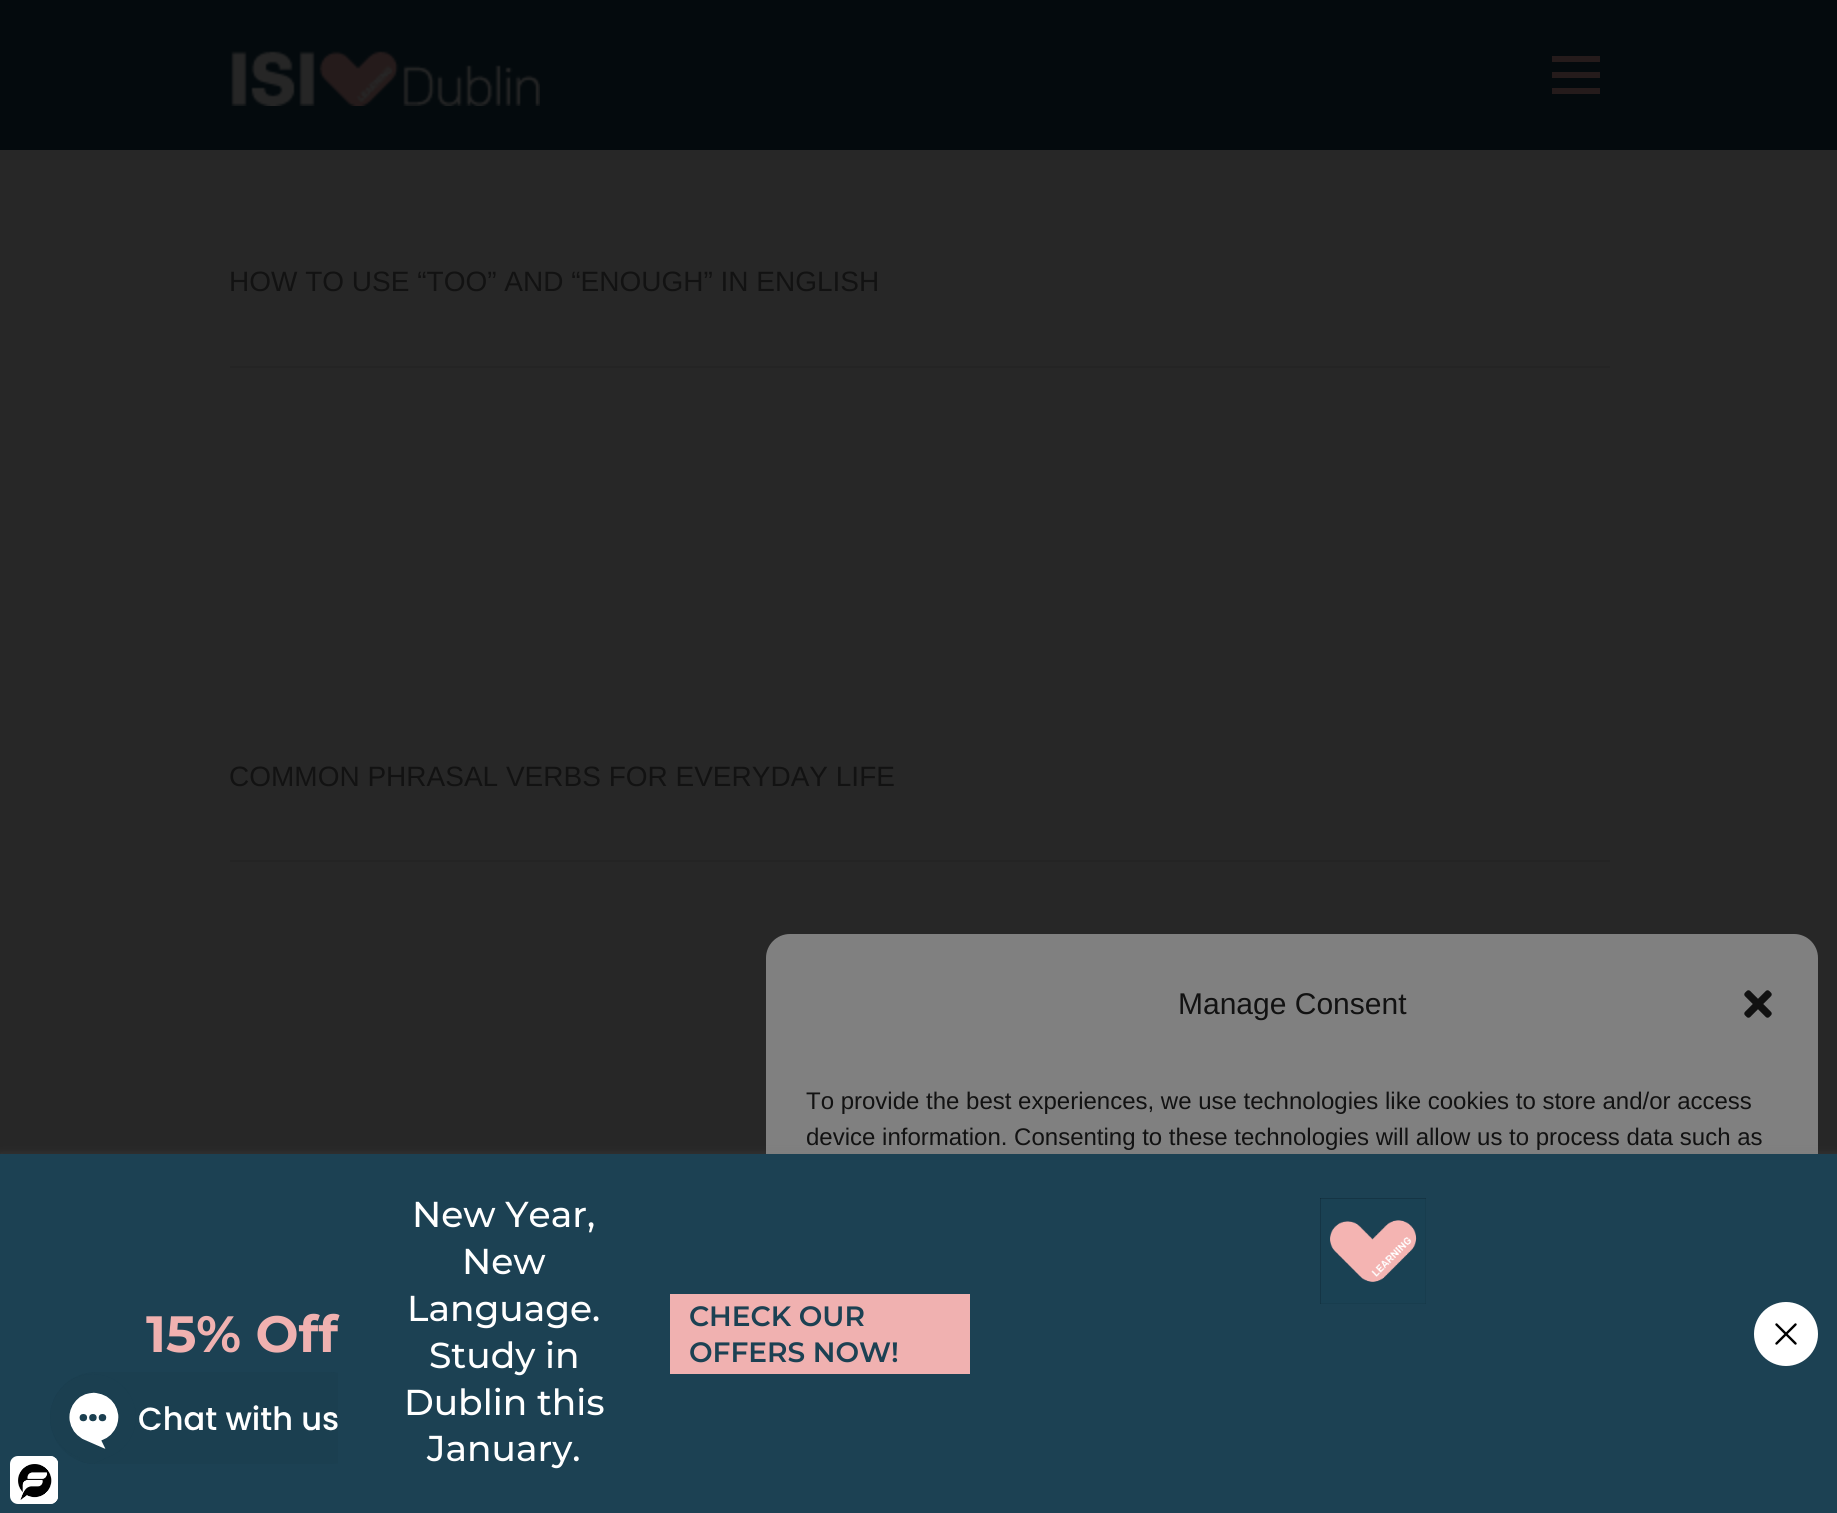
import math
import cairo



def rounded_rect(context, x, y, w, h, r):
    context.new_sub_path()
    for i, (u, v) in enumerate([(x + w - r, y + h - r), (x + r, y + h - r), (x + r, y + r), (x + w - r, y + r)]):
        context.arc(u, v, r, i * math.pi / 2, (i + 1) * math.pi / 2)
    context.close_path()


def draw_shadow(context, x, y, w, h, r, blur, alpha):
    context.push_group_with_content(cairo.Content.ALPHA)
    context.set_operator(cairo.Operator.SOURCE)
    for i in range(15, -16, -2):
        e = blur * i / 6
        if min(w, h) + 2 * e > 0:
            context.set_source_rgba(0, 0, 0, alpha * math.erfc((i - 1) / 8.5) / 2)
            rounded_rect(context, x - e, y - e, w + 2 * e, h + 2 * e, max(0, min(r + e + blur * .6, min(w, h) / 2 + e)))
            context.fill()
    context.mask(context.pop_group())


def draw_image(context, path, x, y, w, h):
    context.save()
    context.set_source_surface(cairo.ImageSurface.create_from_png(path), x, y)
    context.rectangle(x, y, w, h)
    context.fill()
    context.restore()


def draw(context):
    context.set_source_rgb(39 / 255, 39 / 255, 39 / 255)
    context.paint()
    context.set_source_rgb(4 / 255, 10 / 255, 13 / 255)
    context.rectangle(0, 0, 1837, 150)
    context.fill()
    draw_image(context, "images/1.png", 231, 51, 309, 55)
    context.set_source_rgb(37 / 255, 27 / 255, 27 / 255)
    context.rectangle(1552, 72, 48, 6)
    context.fill()
    context.rectangle(1552, 56, 48, 6)
    context.fill()
    context.rectangle(1552, 88, 48, 6)
    context.fill()
    context.set_source_rgb(36 / 255, 36 / 255, 36 / 255)
    context.rectangle(230, 366, 1380, 2)
    context.fill()
    context.rectangle(230, 860, 1380, 2)
    context.fill()
    context.set_source_rgb(128 / 255, 128 / 255, 128 / 255)
    rounded_rect(context, 766, 934, 1052, 560, 24)
    context.fill()
    draw_image(context, "images/2.png", 1744, 990, 28, 28)
    context.set_source_rgb(125 / 255, 125 / 255, 125 / 255)
    draw_shadow(context, 0, 1156, 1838, 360, 0, 5, 0.3)
    context.set_source_rgb(28 / 255, 65 / 255, 83 / 255)
    context.rectangle(0, 1154, 1837, 359)
    context.fill()
    context.set_source_rgb(240 / 255, 177 / 255, 176 / 255)
    context.rectangle(670, 1294, 300, 80)
    context.fill()
    draw_image(context, "images/3.png", 1320, 1198, 106, 106)
    context.set_source_rgb(1, 1, 1)
    context.arc(1786, 1334, 32, 0, 2 * math.pi)
    context.fill()
    context.new_path()
    context.move_to(1795.5, 1324.5)
    context.line_to(1776.5, 1343.5)
    context.move_to(1776.5, 1324.5)
    context.line_to(1795.5, 1343.5)
    context.set_source_rgb(0, 0, 0)
    context.set_line_width(2.4)
    context.set_line_cap(cairo.LineCap.ROUND)
    context.set_line_join(cairo.LineJoin.ROUND)
    context.stroke()
    context.set_source_rgb(1, 1, 1)
    rounded_rect(context, 10, 1456, 48, 48, 8)
    context.fill()
    draw_image(context, "images/4.png", 18, 1460, 40, 42)
    draw_image(context, "images/5.png", 50, 1372, 288, 132)
    context.select_font_face("Liberation Sans")
    context.set_font_size(28)
    context.set_source_rgb(18 / 255, 18 / 255, 18 / 255)
    context.move_to(229, 291)
    context.show_text("HOW TO USE “TOO” AND “ENOUGH” IN ENGLISH")
    context.move_to(229, 786)
    context.show_text("COMMON PHRASAL VERBS FOR EVERYDAY LIFE")
    context.set_font_size(30)
    context.move_to(1178, 1014)
    context.show_text("Manage Consent")
    context.set_font_size(24)
    context.move_to(806, 1109)
    context.show_text("To provide the best experiences, we use technologies like cookies to store and/or access")
    context.move_to(806, 1145)
    context.show_text("device information. Consenting to these technologies will allow us to process data such as")
    context.select_font_face("Montserrat", cairo.FontSlant.NORMAL, cairo.FontWeight.BOLD)
    context.set_font_size(51)
    context.set_source_rgb(240 / 255, 177 / 255, 176 / 255)
    context.move_to(146, 1352)
    context.show_text("15% Off")
    context.select_font_face("Montserrat Medium")
    context.set_font_size(36)
    context.set_source_rgb(1, 1, 1)
    context.move_to(412, 1227)
    context.show_text("New Year,")
    context.move_to(462, 1274)
    context.show_text("New")
    context.move_to(407, 1321)
    context.show_text("Language.")
    context.move_to(429, 1368)
    context.show_text("Study in")
    context.move_to(404, 1415)
    context.show_text("Dublin this")
    context.move_to(427, 1461)
    context.show_text("January.")
    context.select_font_face("Montserrat SemiBold")
    context.set_font_size(28)
    context.set_source_rgb(28 / 255, 65 / 255, 83 / 255)
    context.move_to(689, 1326)
    context.show_text("CHECK OUR")
    context.move_to(689, 1362)
    context.show_text("OFFERS NOW!")


surface = cairo.ImageSurface(cairo.Format.RGB24, 1837, 1513)
context = cairo.Context(surface)
options = cairo.FontOptions()
options.set_hint_metrics(cairo.HintMetrics.OFF)
options.set_hint_style(cairo.HintStyle.NONE)
context.set_font_options(options)
context.set_miter_limit(4)
draw(context)
surface.write_to_png("out.png")
